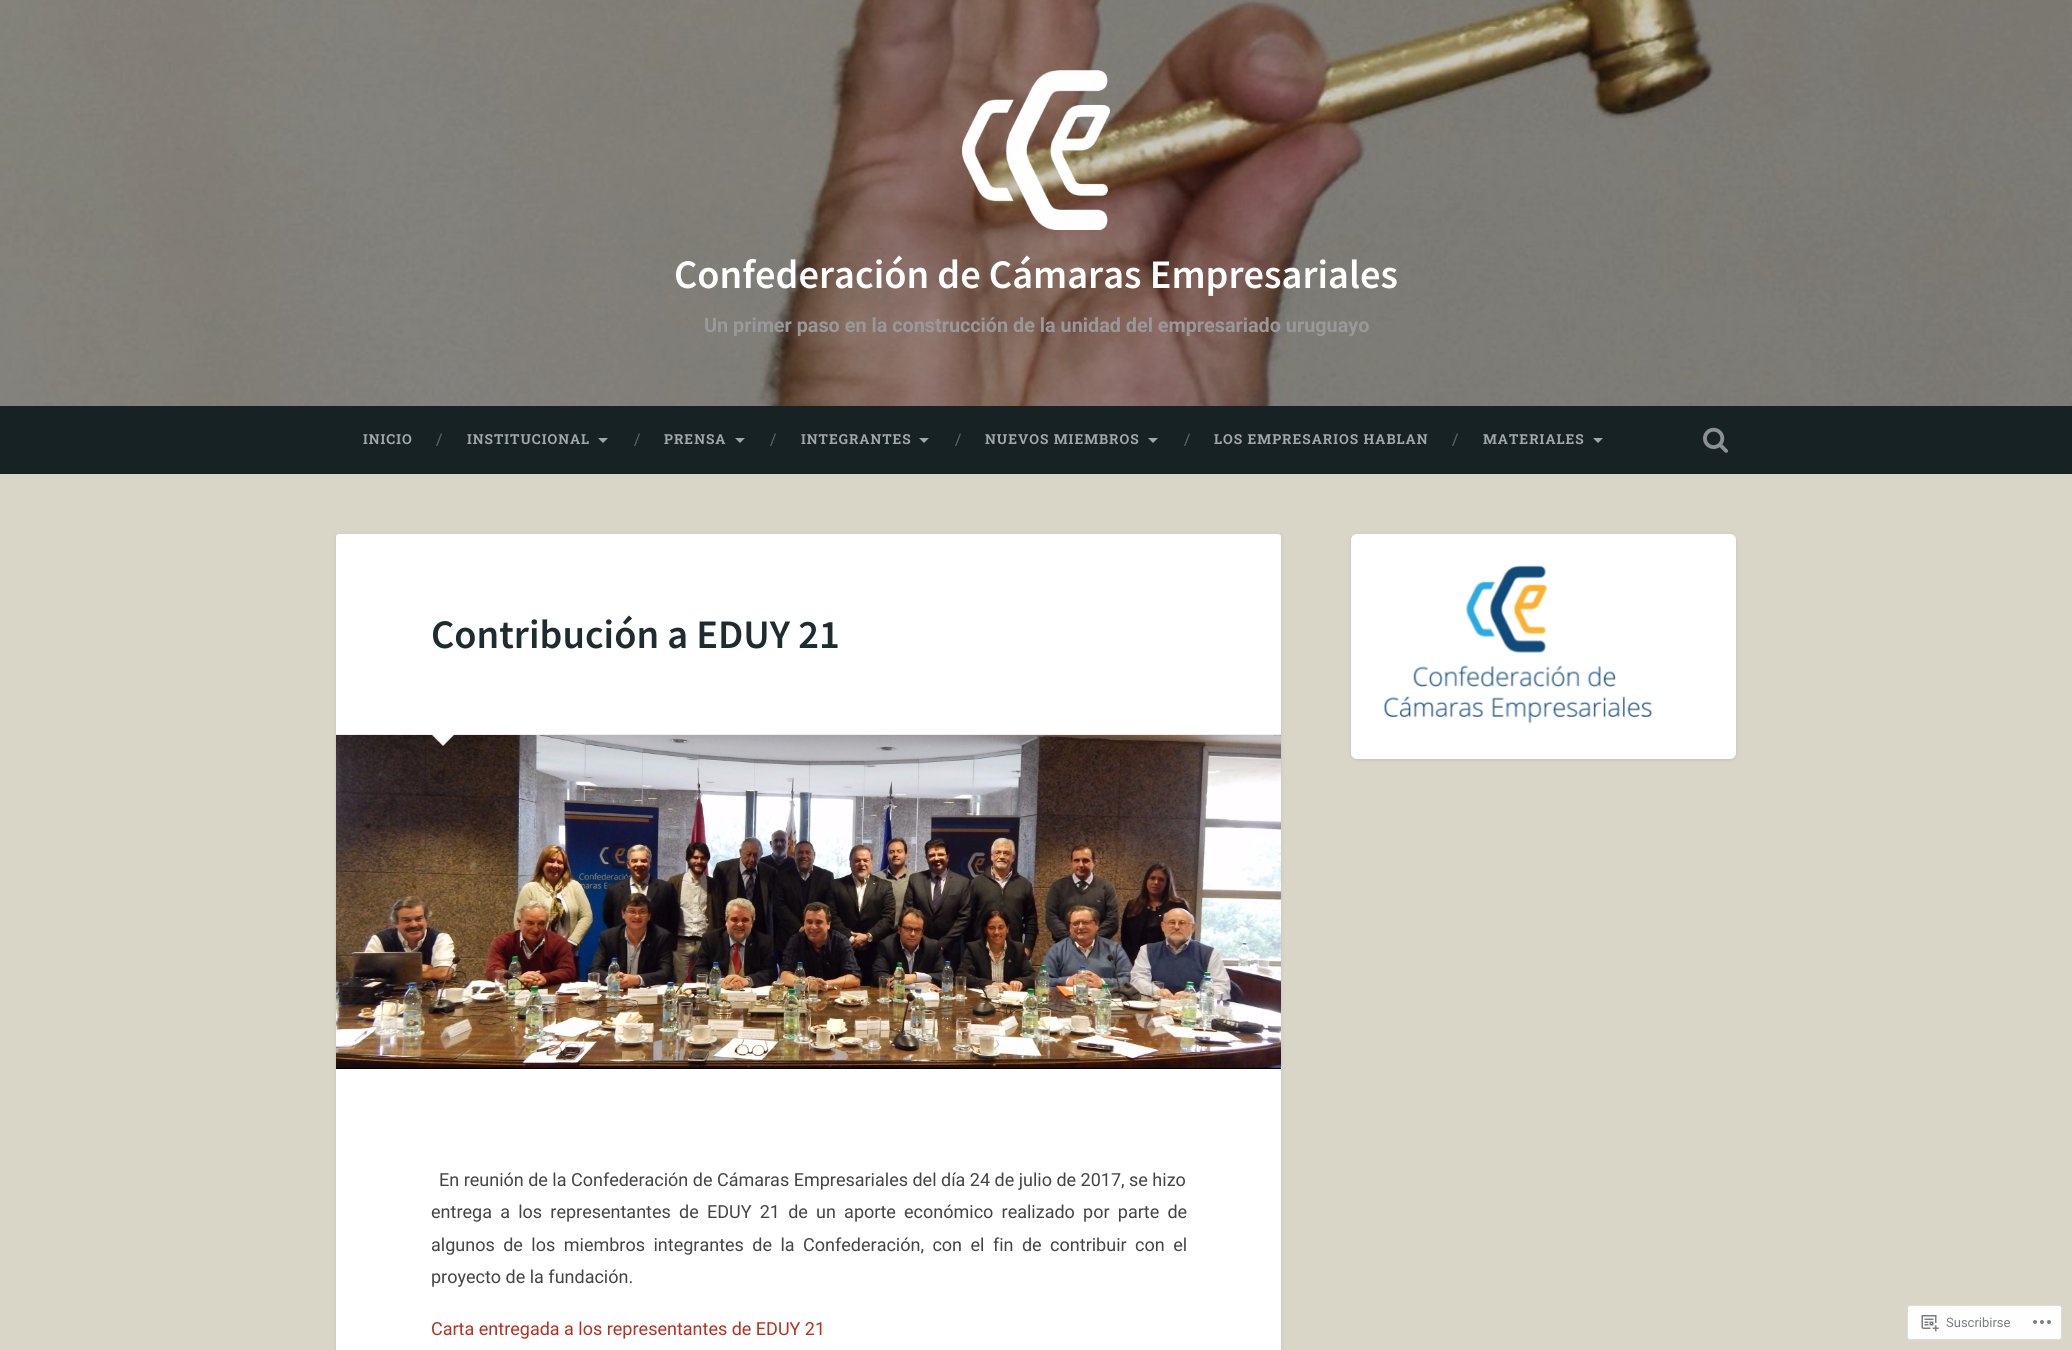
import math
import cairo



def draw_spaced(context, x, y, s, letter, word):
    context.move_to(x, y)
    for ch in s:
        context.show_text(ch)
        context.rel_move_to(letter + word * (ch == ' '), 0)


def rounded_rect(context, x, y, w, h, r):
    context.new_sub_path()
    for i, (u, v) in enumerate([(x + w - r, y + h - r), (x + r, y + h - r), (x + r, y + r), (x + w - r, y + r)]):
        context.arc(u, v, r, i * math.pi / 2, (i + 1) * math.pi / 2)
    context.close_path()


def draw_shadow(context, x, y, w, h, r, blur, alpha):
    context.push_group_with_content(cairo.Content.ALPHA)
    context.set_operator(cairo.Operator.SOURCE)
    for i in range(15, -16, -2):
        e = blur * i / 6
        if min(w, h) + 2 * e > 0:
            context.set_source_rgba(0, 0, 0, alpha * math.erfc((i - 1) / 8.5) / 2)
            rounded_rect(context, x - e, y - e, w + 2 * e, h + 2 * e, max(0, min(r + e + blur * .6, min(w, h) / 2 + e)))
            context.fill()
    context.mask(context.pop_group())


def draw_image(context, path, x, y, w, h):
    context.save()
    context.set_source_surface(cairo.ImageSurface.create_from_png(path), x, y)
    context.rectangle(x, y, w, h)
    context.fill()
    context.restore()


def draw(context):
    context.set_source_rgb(217 / 255, 214 / 255, 200 / 255)
    context.paint()
    draw_image(context, "images/1.png", 0, 0, 2072, 406)
    draw_image(context, "images/2.png", 962, 70, 148, 160)
    context.set_source_rgb(23 / 255, 34 / 255, 37 / 255)
    context.rectangle(0, 406, 2072, 68)
    context.fill()
    context.set_source_rgb(162 / 255, 167 / 255, 168 / 255)
    context.new_path()
    context.move_to(598, 438)
    context.line_to(608, 438)
    context.line_to(603, 443)
    context.close_path()
    context.fill()
    context.new_path()
    context.move_to(735, 438)
    context.line_to(745, 438)
    context.line_to(740, 443)
    context.close_path()
    context.fill()
    context.new_path()
    context.move_to(919, 438)
    context.line_to(929, 438)
    context.line_to(924, 443)
    context.close_path()
    context.fill()
    context.new_path()
    context.move_to(1148, 438)
    context.line_to(1158, 438)
    context.line_to(1153, 443)
    context.close_path()
    context.fill()
    context.new_path()
    context.move_to(1593, 438)
    context.line_to(1603, 438)
    context.line_to(1598, 443)
    context.close_path()
    context.fill()
    draw_image(context, "images/3.png", 1703, 427, 25, 26)
    context.set_source_rgb(0, 0, 0)
    draw_shadow(context, 336, 535, 945, 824, 3, 2, 0.1)
    context.set_source_rgb(1, 1, 1)
    rounded_rect(context, 336, 534, 945, 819, 3)
    context.fill()
    context.set_source_rgb(238 / 255, 238 / 255, 238 / 255)
    context.rectangle(336, 734, 945, 1)
    context.fill()
    draw_image(context, "images/4.png", 336, 735, 945, 334)
    context.new_path()
    context.move_to(431, 734)
    context.line_to(455, 734)
    context.line_to(443, 746)
    context.close_path()
    context.fill()
    context.set_source_rgb(1, 1, 1)
    context.new_path()
    context.move_to(432, 733)
    context.line_to(454, 733)
    context.line_to(443, 744)
    context.close_path()
    context.fill()
    context.set_source_rgb(0, 0, 0)
    draw_shadow(context, 1351, 535, 385, 225, 6, 2, 0.1)
    context.set_source_rgb(1, 1, 1)
    rounded_rect(context, 1351, 534, 385, 225, 6)
    context.fill()
    draw_image(context, "images/5.png", 1384, 565, 268, 159)
    context.set_source_rgb(254 / 255, 254 / 255, 254 / 255)
    rounded_rect(context, 1907.5, 1305.5, 154, 34, 2.5)
    context.fill_preserve()
    context.set_source_rgb(220 / 255, 220 / 255, 222 / 255)
    context.set_line_width(1)
    context.stroke()
    draw_image(context, "images/6.png", 1921, 1315, 18, 17)
    draw_image(context, "images/7.png", 2033, 1320, 18, 4)
    context.select_font_face("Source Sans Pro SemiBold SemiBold")
    context.set_font_size(40.5)
    context.set_source_rgb(1, 1, 1)
    context.move_to(674, 288)
    context.show_text("Confederación de Cámaras Empresariales")
    context.select_font_face("Roboto", cairo.FontSlant.NORMAL, cairo.FontWeight.BOLD)
    context.set_font_size(19.8)
    context.set_source_rgb(153 / 255, 153 / 255, 153 / 255)
    context.move_to(704, 332)
    context.show_text("Un primer paso en la construcción de la unidad del empresariado uruguayo")
    context.select_font_face("Roboto Slab", cairo.FontSlant.NORMAL, cairo.FontWeight.BOLD)
    context.set_font_size(13.75)
    context.set_source_rgb(162 / 255, 167 / 255, 168 / 255)
    draw_spaced(context, 363, 444, "INICIO", 1, 0)
    context.select_font_face("Roboto Slab")
    context.set_font_size(16)
    context.set_source_rgb(93 / 255, 100 / 255, 102 / 255)
    context.move_to(436, 445)
    context.show_text("/")
    context.select_font_face("Roboto Slab", cairo.FontSlant.NORMAL, cairo.FontWeight.BOLD)
    context.set_font_size(13.75)
    context.set_source_rgb(162 / 255, 167 / 255, 168 / 255)
    draw_spaced(context, 467, 444, "INSTITUCIONAL", 1, 0)
    context.select_font_face("Roboto Slab")
    context.set_font_size(16)
    context.set_source_rgb(93 / 255, 100 / 255, 102 / 255)
    context.move_to(634, 445)
    context.show_text("/")
    context.select_font_face("Roboto Slab", cairo.FontSlant.NORMAL, cairo.FontWeight.BOLD)
    context.set_font_size(13.75)
    context.set_source_rgb(162 / 255, 167 / 255, 168 / 255)
    draw_spaced(context, 664, 444, "PRENSA", 1, 0)
    context.select_font_face("Roboto Slab")
    context.set_font_size(16)
    context.set_source_rgb(93 / 255, 100 / 255, 102 / 255)
    context.move_to(770, 445)
    context.show_text("/")
    context.select_font_face("Roboto Slab", cairo.FontSlant.NORMAL, cairo.FontWeight.BOLD)
    context.set_font_size(13.75)
    context.set_source_rgb(162 / 255, 167 / 255, 168 / 255)
    draw_spaced(context, 801, 444, "INTEGRANTES", 1, 0)
    context.select_font_face("Roboto Slab")
    context.set_font_size(16)
    context.set_source_rgb(93 / 255, 100 / 255, 102 / 255)
    context.move_to(955, 445)
    context.show_text("/")
    context.select_font_face("Roboto Slab", cairo.FontSlant.NORMAL, cairo.FontWeight.BOLD)
    context.set_font_size(13.75)
    context.set_source_rgb(162 / 255, 167 / 255, 168 / 255)
    draw_spaced(context, 985, 444, "NUEVOS MIEMBROS", 1, 0)
    context.select_font_face("Roboto Slab")
    context.set_font_size(16)
    context.set_source_rgb(93 / 255, 100 / 255, 102 / 255)
    context.move_to(1184, 445)
    context.show_text("/")
    context.select_font_face("Roboto Slab", cairo.FontSlant.NORMAL, cairo.FontWeight.BOLD)
    context.set_font_size(13.75)
    context.set_source_rgb(162 / 255, 167 / 255, 168 / 255)
    draw_spaced(context, 1214, 444, "LOS EMPRESARIOS HABLAN", 1, 0)
    context.select_font_face("Roboto Slab")
    context.set_font_size(16)
    context.set_source_rgb(93 / 255, 100 / 255, 102 / 255)
    context.move_to(1452, 445)
    context.show_text("/")
    context.select_font_face("Roboto Slab", cairo.FontSlant.NORMAL, cairo.FontWeight.BOLD)
    context.set_font_size(13.75)
    context.set_source_rgb(162 / 255, 167 / 255, 168 / 255)
    draw_spaced(context, 1483, 444, "MATERIALES", 1, 0)
    context.select_font_face("Source Sans Pro SemiBold SemiBold")
    context.set_font_size(40.5)
    context.set_source_rgb(30 / 255, 44 / 255, 48 / 255)
    context.move_to(431, 648)
    context.show_text("Contribución a EDUY 21")
    context.select_font_face("Roboto")
    context.set_font_size(18)
    context.set_source_rgb(68 / 255, 68 / 255, 68 / 255)
    context.move_to(439, 1186)
    context.show_text("En reunión de la Confederación de Cámaras Empresariales del día 24 de julio de 2017, se hizo")
    draw_spaced(context, 431, 1218, "entrega a los representantes de EDUY 21 de un aporte económico realizado por parte de", 0, 3.75)
    draw_spaced(context, 431, 1251, "algunos de los miembros integrantes de la Confederación, con el fin de contribuir con el", 0, 4)
    context.move_to(431, 1283)
    context.show_text("proyecto de la fundación.")
    context.set_source_rgb(186 / 255, 47 / 255, 29 / 255)
    context.move_to(431, 1335)
    context.show_text("Carta entregada a los representantes de EDUY 21")
    context.set_font_size(13)
    context.set_source_rgb(122 / 255, 126 / 255, 131 / 255)
    context.move_to(1946, 1327)
    context.show_text("Suscribirse")


surface = cairo.ImageSurface(cairo.Format.RGB24, 2072, 1350)
context = cairo.Context(surface)
options = cairo.FontOptions()
options.set_hint_metrics(cairo.HintMetrics.OFF)
options.set_hint_style(cairo.HintStyle.NONE)
context.set_font_options(options)
context.set_miter_limit(4)
draw(context)
surface.write_to_png("out.png")
